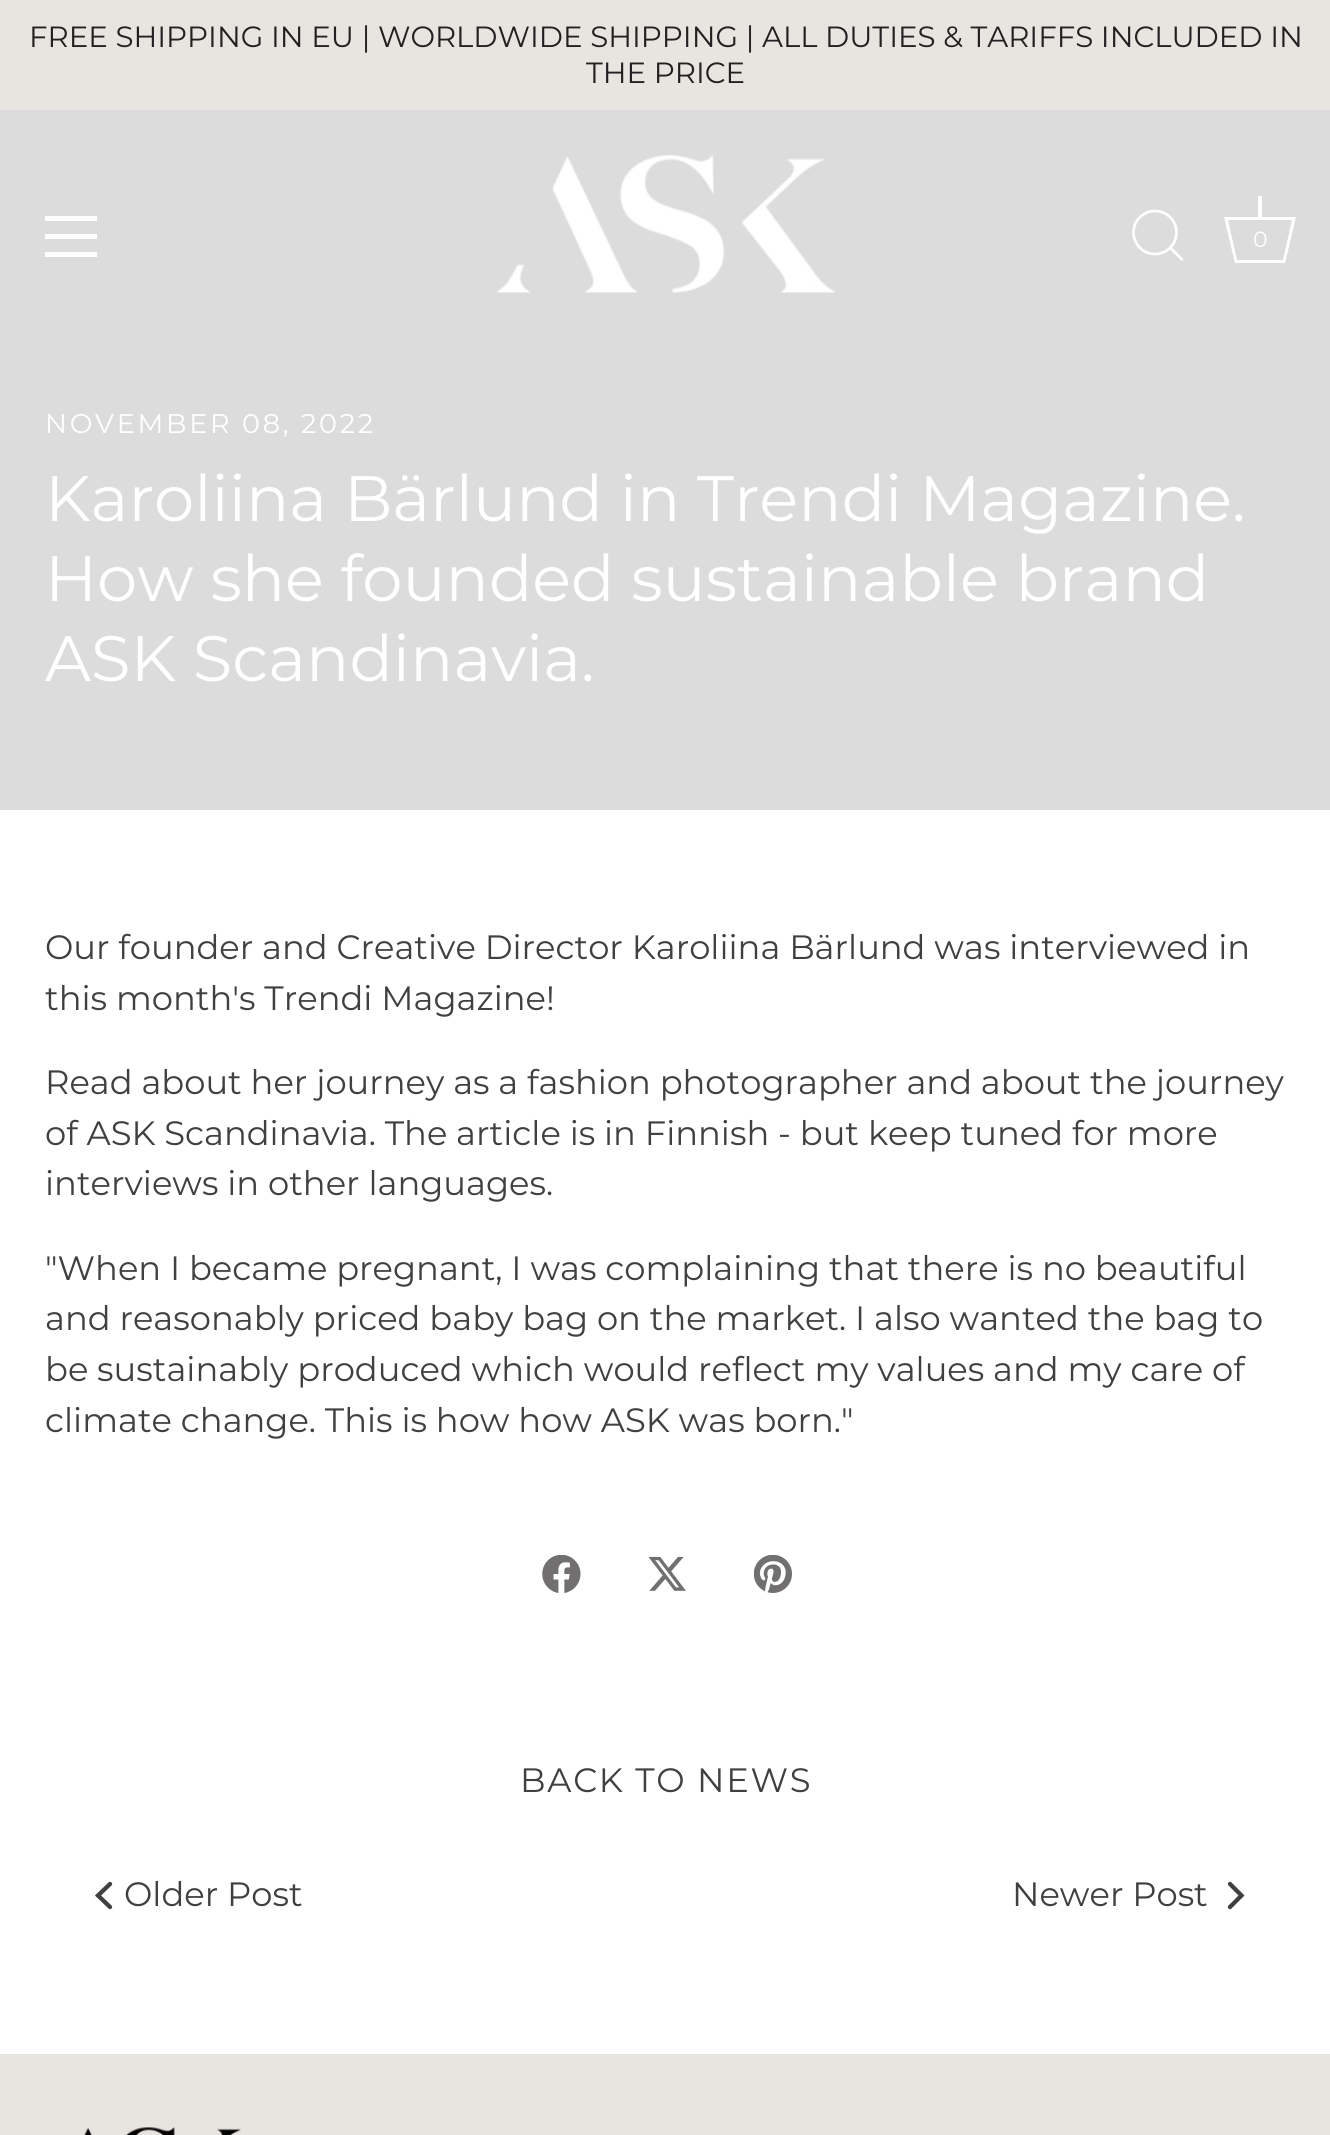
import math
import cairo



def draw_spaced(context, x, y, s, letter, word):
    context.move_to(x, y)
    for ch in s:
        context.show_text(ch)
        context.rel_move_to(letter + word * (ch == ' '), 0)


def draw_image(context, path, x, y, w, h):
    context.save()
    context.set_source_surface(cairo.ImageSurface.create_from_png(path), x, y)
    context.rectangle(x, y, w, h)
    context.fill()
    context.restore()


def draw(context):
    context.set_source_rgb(1, 1, 1)
    context.paint()
    context.set_source_rgb(232 / 255, 228 / 255, 223 / 255)
    context.rectangle(0, 0, 1330, 110)
    context.fill()
    context.set_source_rgb(220 / 255, 220 / 255, 220 / 255)
    context.rectangle(0, 110, 1330, 700)
    context.fill()
    context.set_source_rgb(1, 1, 1)
    context.rectangle(45, 216, 52, 5)
    context.fill()
    context.rectangle(45, 234, 52, 5)
    context.fill()
    context.rectangle(45, 252, 52, 5)
    context.fill()
    draw_image(context, "images/1.png", 497, 155, 338, 138)
    context.arc(1155, 232.5, 21.5, 0, 2 * math.pi)
    context.set_line_width(2.7)
    context.stroke()
    context.new_path()
    context.move_to(1182, 259.5)
    context.line_to(1170.5, 248)
    context.set_line_cap(cairo.LineCap.ROUND)
    context.set_line_join(cairo.LineJoin.ROUND)
    context.stroke()
    context.rectangle(1258, 196, 4, 21)
    context.fill()
    context.new_path()
    context.move_to(1292, 220)
    context.line_to(1283, 260)
    context.line_to(1237, 260)
    context.line_to(1228, 220)
    context.line_to(1292, 220)
    context.move_to(1296, 217)
    context.line_to(1224, 217)
    context.line_to(1235, 263)
    context.line_to(1285, 263)
    context.close_path()
    context.fill()
    draw_image(context, "images/2.png", 542, 1555, 39, 38)
    draw_image(context, "images/3.png", 648, 1556, 38, 35)
    draw_image(context, "images/4.png", 754, 1555, 38, 38)
    context.new_path()
    context.move_to(110, 1884)
    context.line_to(98, 1895.5)
    context.line_to(110, 1907)
    context.set_source_rgb(66 / 255, 63 / 255, 63 / 255)
    context.set_line_width(4.3)
    context.set_line_join(cairo.LineJoin.MITER)
    context.stroke()
    context.new_path()
    context.move_to(1230, 1907)
    context.line_to(1241.5, 1895.5)
    context.line_to(1230, 1884)
    context.stroke()
    context.set_source_rgb(232 / 255, 228 / 255, 223 / 255)
    context.rectangle(0, 2054, 1330, 81)
    context.fill()
    draw_image(context, "images/5.png", 84, 2127, 157, 8)
    context.select_font_face("Montserrat")
    context.set_font_size(29.25)
    context.set_source_rgb(33 / 255, 33 / 255, 33 / 255)
    context.move_to(29, 47)
    context.show_text("FREE SHIPPING IN EU | WORLDWIDE SHIPPING | ALL DUTIES & TARIFFS INCLUDED IN")
    context.move_to(586, 83)
    context.show_text("THE PRICE")
    context.set_font_size(22)
    context.set_source_rgb(1, 1, 1)
    context.move_to(1253, 247)
    context.show_text("0")
    context.set_font_size(27)
    draw_spaced(context, 45, 433, "NOVEMBER 08, 2022", 2.75, 0)
    context.set_font_size(64.1)
    context.move_to(45, 521)
    context.show_text("Karoliina Bärlund in Trendi Magazine.")
    context.move_to(45, 601)
    context.show_text("How she founded sustainable brand")
    context.move_to(45, 681)
    context.show_text("ASK Scandinavia.")
    context.set_font_size(33.75)
    context.set_source_rgb(66 / 255, 63 / 255, 63 / 255)
    context.move_to(45, 959)
    context.show_text("Our founder and Creative Director Karoliina Bärlund was interviewed in")
    context.move_to(45, 1010)
    context.show_text("this month's Trendi Magazine!")
    context.move_to(45, 1094)
    context.show_text("Read about her journey as a fashion photographer and about the journey")
    context.move_to(45, 1145)
    context.show_text("of ASK Scandinavia. The article is in Finnish - but keep tuned for more")
    context.move_to(45, 1195)
    context.show_text("interviews in other languages.")
    context.move_to(45, 1280)
    context.show_text("\"When I became pregnant, I was complaining that there is no beautiful")
    context.move_to(45, 1330)
    context.show_text("and reasonably priced baby bag on the market. I also wanted the bag to")
    context.move_to(45, 1381)
    context.show_text("be sustainably produced which would reflect my values and my care of")
    context.move_to(45, 1432)
    context.show_text("climate change. This is how how ASK was born.\"")
    draw_spaced(context, 520, 1792, "BACK TO NEWS", 1.75, 0)
    context.move_to(124, 1906)
    context.show_text("Older Post")
    context.move_to(1012, 1906)
    context.show_text("Newer Post")


surface = cairo.ImageSurface(cairo.Format.RGB24, 1330, 2135)
context = cairo.Context(surface)
options = cairo.FontOptions()
options.set_hint_metrics(cairo.HintMetrics.OFF)
options.set_hint_style(cairo.HintStyle.NONE)
context.set_font_options(options)
context.set_miter_limit(4)
draw(context)
surface.write_to_png("out.png")
